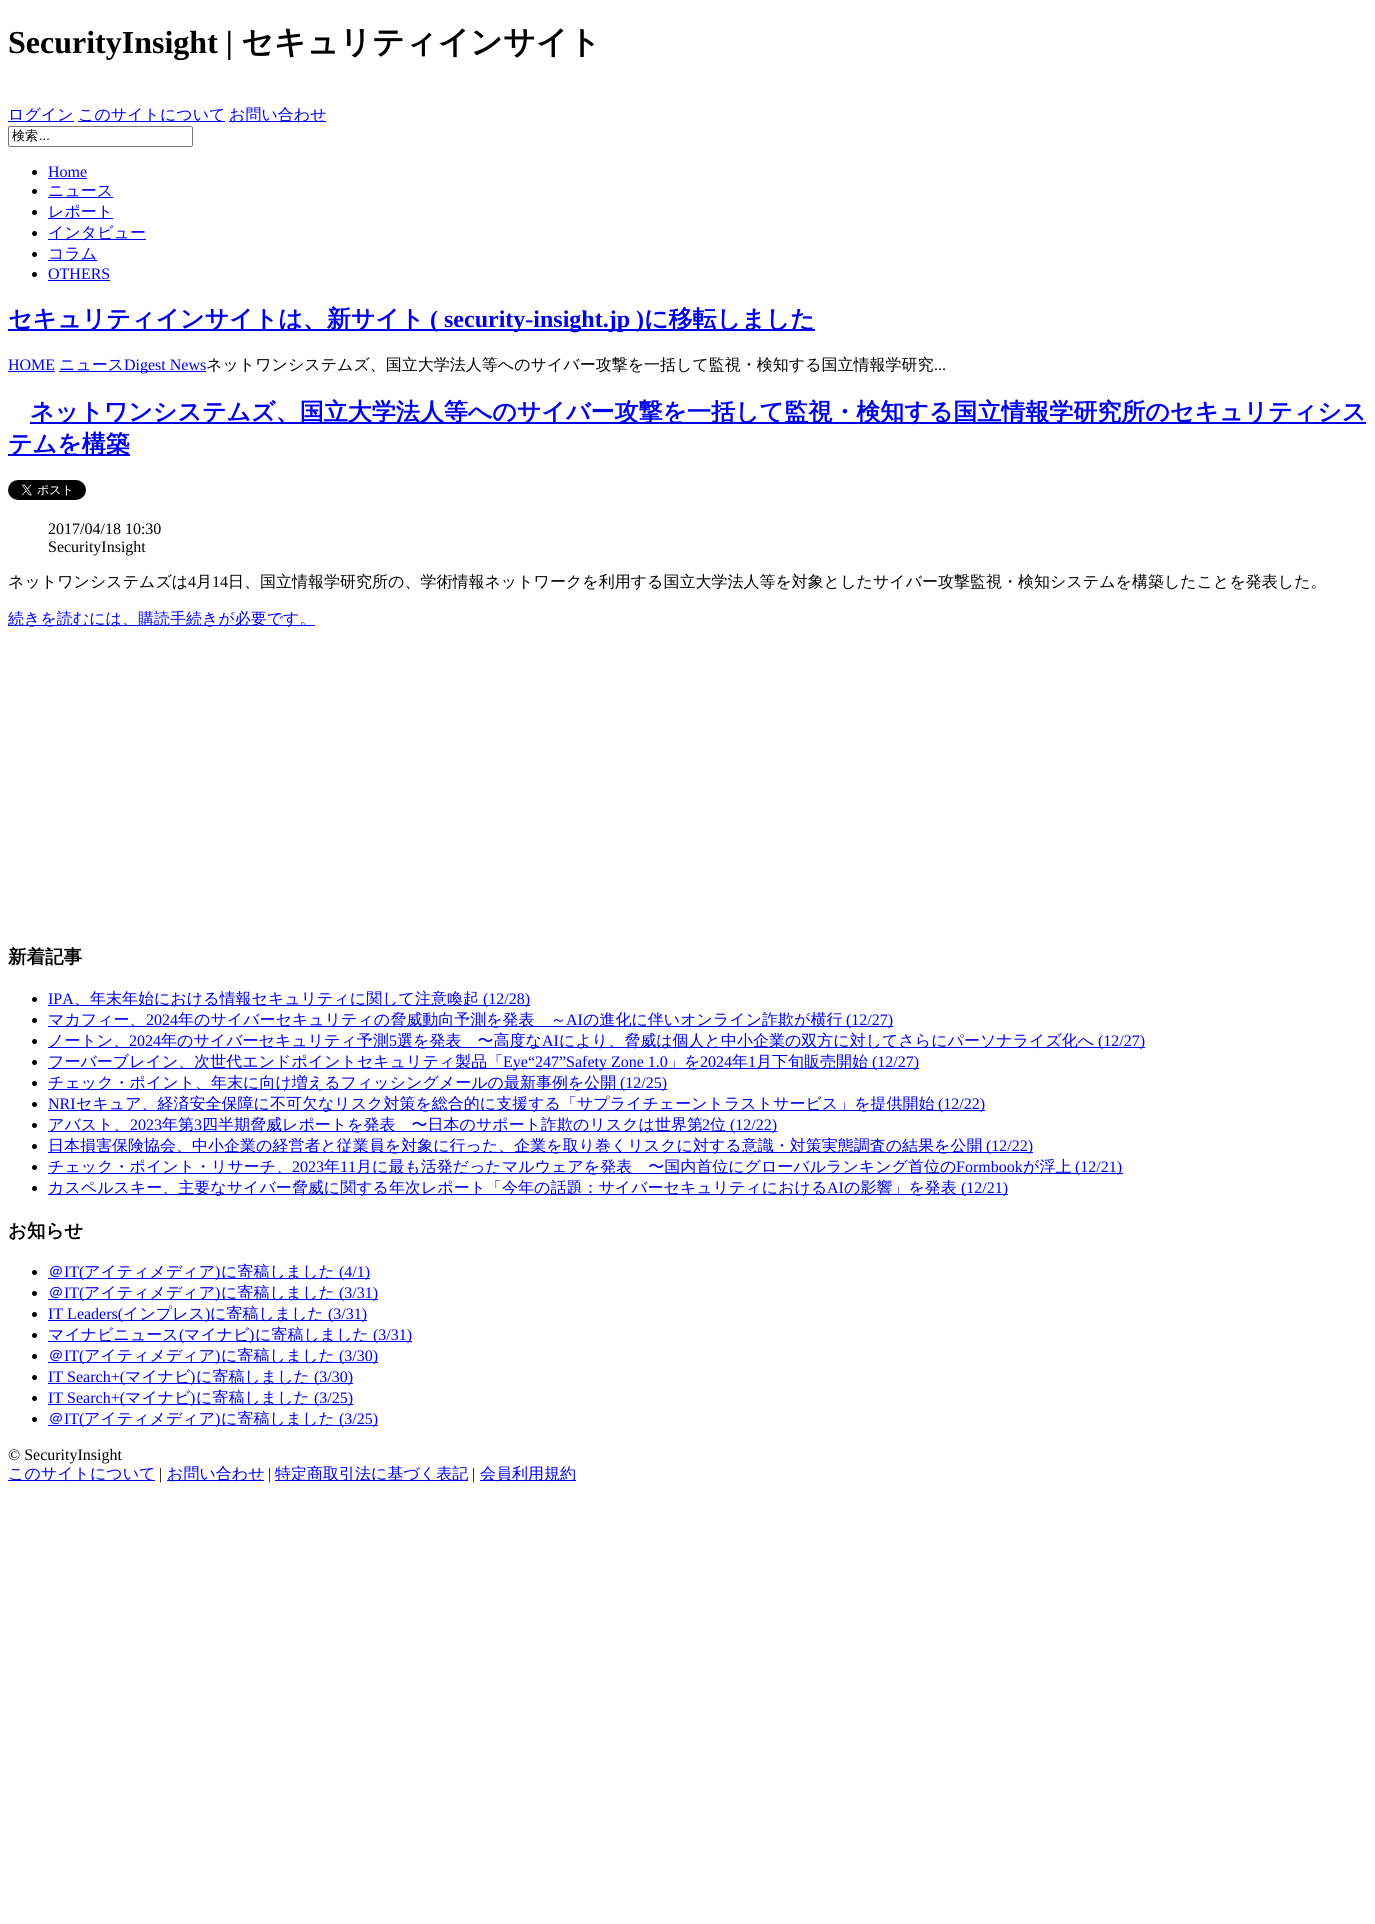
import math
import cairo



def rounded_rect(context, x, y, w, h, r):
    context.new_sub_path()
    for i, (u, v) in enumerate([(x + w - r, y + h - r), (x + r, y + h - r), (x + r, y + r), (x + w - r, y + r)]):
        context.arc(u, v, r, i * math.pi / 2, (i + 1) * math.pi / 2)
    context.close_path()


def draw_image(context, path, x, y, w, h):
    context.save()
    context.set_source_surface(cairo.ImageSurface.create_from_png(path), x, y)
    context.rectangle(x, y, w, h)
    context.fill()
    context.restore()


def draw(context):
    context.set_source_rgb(1, 1, 1)
    context.paint()
    context.set_source_rgb(0, 0, 238 / 255)
    context.rectangle(8, 121, 66, 1)
    context.fill()
    context.rectangle(78, 121, 147, 1)
    context.fill()
    context.rectangle(229, 121, 97, 1)
    context.fill()
    rounded_rect(context, 8.5, 126.5, 184, 20, 1.5)
    context.set_source_rgb(118 / 255, 118 / 255, 118 / 255)
    context.set_line_width(1)
    context.stroke()
    context.set_source_rgb(0, 0, 0)
    context.arc(34.5, 172.5, 2.5, 0, 2 * math.pi)
    context.fill()
    context.set_source_rgb(0, 0, 238 / 255)
    context.rectangle(48, 178, 39, 1)
    context.fill()
    context.set_source_rgb(0, 0, 0)
    context.arc(34.5, 191.5, 2.5, 0, 2 * math.pi)
    context.fill()
    context.set_source_rgb(0, 0, 238 / 255)
    context.rectangle(48, 197, 65, 1)
    context.fill()
    context.set_source_rgb(0, 0, 0)
    context.arc(34.5, 212.5, 2.5, 0, 2 * math.pi)
    context.fill()
    context.set_source_rgb(0, 0, 238 / 255)
    context.rectangle(48, 218, 65, 1)
    context.fill()
    context.set_source_rgb(0, 0, 0)
    context.arc(34.5, 233.5, 2.5, 0, 2 * math.pi)
    context.fill()
    context.set_source_rgb(0, 0, 238 / 255)
    context.rectangle(48, 239, 98, 1)
    context.fill()
    context.set_source_rgb(0, 0, 0)
    context.arc(34.5, 254.5, 2.5, 0, 2 * math.pi)
    context.fill()
    context.set_source_rgb(0, 0, 238 / 255)
    context.rectangle(48, 260, 49, 1)
    context.fill()
    context.set_source_rgb(0, 0, 0)
    context.arc(34.5, 274.5, 2.5, 0, 2 * math.pi)
    context.fill()
    context.set_source_rgb(0, 0, 238 / 255)
    context.rectangle(48, 280, 62, 1)
    context.fill()
    context.rectangle(8, 329, 807, 2)
    context.fill()
    context.rectangle(8, 371, 47, 1)
    context.fill()
    context.rectangle(59, 371, 147, 1)
    context.fill()
    context.rectangle(30, 422, 1336, 2)
    context.fill()
    context.rectangle(8, 454, 122, 2)
    context.fill()
    draw_image(context, "images/1.png", 8, 480, 78, 20)
    context.rectangle(8, 625, 307, 1)
    context.fill()
    context.set_source_rgb(0, 0, 0)
    context.arc(34.5, 999.5, 2.5, 0, 2 * math.pi)
    context.fill()
    context.set_source_rgb(0, 0, 238 / 255)
    context.rectangle(48, 1005, 482, 1)
    context.fill()
    context.set_source_rgb(0, 0, 0)
    context.arc(34.5, 1020.5, 2.5, 0, 2 * math.pi)
    context.fill()
    context.set_source_rgb(0, 0, 238 / 255)
    context.rectangle(48, 1026, 845, 1)
    context.fill()
    context.set_source_rgb(0, 0, 0)
    context.arc(34.5, 1041.5, 2.5, 0, 2 * math.pi)
    context.fill()
    context.set_source_rgb(0, 0, 238 / 255)
    context.rectangle(48, 1047, 1097, 1)
    context.fill()
    context.set_source_rgb(0, 0, 0)
    context.arc(34.5, 1062.5, 2.5, 0, 2 * math.pi)
    context.fill()
    context.set_source_rgb(0, 0, 238 / 255)
    context.rectangle(48, 1068, 871, 1)
    context.fill()
    context.set_source_rgb(0, 0, 0)
    context.arc(34.5, 1083.5, 2.5, 0, 2 * math.pi)
    context.fill()
    context.set_source_rgb(0, 0, 238 / 255)
    context.rectangle(48, 1089, 619, 1)
    context.fill()
    context.set_source_rgb(0, 0, 0)
    context.arc(34.5, 1104.5, 2.5, 0, 2 * math.pi)
    context.fill()
    context.set_source_rgb(0, 0, 238 / 255)
    context.rectangle(48, 1110, 937, 1)
    context.fill()
    context.set_source_rgb(0, 0, 0)
    context.arc(34.5, 1125.5, 2.5, 0, 2 * math.pi)
    context.fill()
    context.set_source_rgb(0, 0, 238 / 255)
    context.rectangle(48, 1131, 729, 1)
    context.fill()
    context.set_source_rgb(0, 0, 0)
    context.arc(34.5, 1146.5, 2.5, 0, 2 * math.pi)
    context.fill()
    context.set_source_rgb(0, 0, 238 / 255)
    context.rectangle(48, 1152, 985, 1)
    context.fill()
    context.set_source_rgb(0, 0, 0)
    context.arc(34.5, 1167.5, 2.5, 0, 2 * math.pi)
    context.fill()
    context.set_source_rgb(0, 0, 238 / 255)
    context.rectangle(48, 1173, 1075, 1)
    context.fill()
    context.set_source_rgb(0, 0, 0)
    context.arc(34.5, 1188.5, 2.5, 0, 2 * math.pi)
    context.fill()
    context.set_source_rgb(0, 0, 238 / 255)
    context.rectangle(48, 1194, 960, 1)
    context.fill()
    context.set_source_rgb(0, 0, 0)
    context.arc(34.5, 1272.5, 2.5, 0, 2 * math.pi)
    context.fill()
    context.set_source_rgb(0, 0, 238 / 255)
    context.rectangle(48, 1278, 322, 1)
    context.fill()
    context.set_source_rgb(0, 0, 0)
    context.arc(34.5, 1293.5, 2.5, 0, 2 * math.pi)
    context.fill()
    context.set_source_rgb(0, 0, 238 / 255)
    context.rectangle(48, 1299, 330, 1)
    context.fill()
    context.set_source_rgb(0, 0, 0)
    context.arc(34.5, 1314.5, 2.5, 0, 2 * math.pi)
    context.fill()
    context.set_source_rgb(0, 0, 238 / 255)
    context.rectangle(48, 1320, 319, 1)
    context.fill()
    context.set_source_rgb(0, 0, 0)
    context.arc(34.5, 1335.5, 2.5, 0, 2 * math.pi)
    context.fill()
    context.set_source_rgb(0, 0, 238 / 255)
    context.rectangle(48, 1341, 364, 1)
    context.fill()
    context.set_source_rgb(0, 0, 0)
    context.arc(34.5, 1356.5, 2.5, 0, 2 * math.pi)
    context.fill()
    context.set_source_rgb(0, 0, 238 / 255)
    context.rectangle(48, 1362, 330, 1)
    context.fill()
    context.set_source_rgb(0, 0, 0)
    context.arc(34.5, 1377.5, 2.5, 0, 2 * math.pi)
    context.fill()
    context.set_source_rgb(0, 0, 238 / 255)
    context.rectangle(48, 1383, 305, 1)
    context.fill()
    context.set_source_rgb(0, 0, 0)
    context.arc(34.5, 1398.5, 2.5, 0, 2 * math.pi)
    context.fill()
    context.set_source_rgb(0, 0, 238 / 255)
    context.rectangle(48, 1404, 305, 1)
    context.fill()
    context.set_source_rgb(0, 0, 0)
    context.arc(34.5, 1419.5, 2.5, 0, 2 * math.pi)
    context.fill()
    context.set_source_rgb(0, 0, 238 / 255)
    context.rectangle(48, 1425, 330, 1)
    context.fill()
    context.rectangle(8, 1480, 147, 1)
    context.fill()
    context.rectangle(167, 1480, 97, 1)
    context.fill()
    context.rectangle(275, 1480, 193, 1)
    context.fill()
    context.rectangle(480, 1480, 96, 1)
    context.fill()
    context.select_font_face("Liberation Serif", cairo.FontSlant.NORMAL, cairo.FontWeight.BOLD)
    context.set_font_size(32)
    context.set_source_rgb(0, 0, 0)
    context.move_to(8, 53)
    context.show_text("SecurityInsight |")
    context.select_font_face("WenQuanYi Zen Hei", cairo.FontSlant.NORMAL, cairo.FontWeight.BOLD)
    context.move_to(241, 53)
    context.show_text("セキュリティインサイト")
    context.select_font_face("WenQuanYi Zen Hei Medium")
    context.set_font_size(16)
    context.set_source_rgb(0, 0, 238 / 255)
    context.move_to(8, 120)
    context.show_text("ログイン")
    context.move_to(78, 120)
    context.show_text("このサイトについて")
    context.move_to(229, 120)
    context.show_text("お問い合わせ")
    context.set_font_size(13)
    context.set_source_rgb(0, 0, 0)
    context.move_to(12, 140)
    context.show_text("検索")
    context.select_font_face("Liberation Sans")
    context.move_to(39, 140)
    context.show_text("...")
    context.select_font_face("Liberation Serif")
    context.set_font_size(16)
    context.set_source_rgb(0, 0, 238 / 255)
    context.move_to(48, 177)
    context.show_text("Home")
    context.select_font_face("WenQuanYi Zen Hei Medium")
    context.move_to(48, 196)
    context.show_text("ニュース")
    context.move_to(48, 217)
    context.show_text("レポート")
    context.move_to(48, 238)
    context.show_text("インタビュー")
    context.move_to(48, 259)
    context.show_text("コラム")
    context.select_font_face("Liberation Serif")
    context.move_to(48, 279)
    context.show_text("OTHERS")
    context.select_font_face("WenQuanYi Zen Hei", cairo.FontSlant.NORMAL, cairo.FontWeight.BOLD)
    context.set_font_size(24)
    context.move_to(8, 327)
    context.show_text("セキュリティインサイトは、新サイト")
    context.select_font_face("Liberation Serif", cairo.FontSlant.NORMAL, cairo.FontWeight.BOLD)
    context.move_to(430, 327)
    context.show_text("( security-insight.jp )")
    context.select_font_face("WenQuanYi Zen Hei", cairo.FontSlant.NORMAL, cairo.FontWeight.BOLD)
    context.move_to(644, 327)
    context.show_text("に移転しました")
    context.select_font_face("Liberation Serif")
    context.set_font_size(16)
    context.move_to(8, 370)
    context.show_text("HOME")
    context.select_font_face("WenQuanYi Zen Hei Medium")
    context.move_to(59, 370)
    context.show_text("ニュース")
    context.select_font_face("Liberation Serif")
    context.move_to(124, 370)
    context.show_text("Digest News")
    context.select_font_face("WenQuanYi Zen Hei Medium")
    context.set_source_rgb(0, 0, 0)
    context.move_to(206, 370)
    context.show_text("ネットワンシステムズ、国立大学法人等へのサイバー攻撃を一括して監視・検知する国立情報学研究")
    context.select_font_face("Liberation Serif")
    context.move_to(934, 370)
    context.show_text("...")
    context.select_font_face("WenQuanYi Zen Hei", cairo.FontSlant.NORMAL, cairo.FontWeight.BOLD)
    context.set_font_size(24)
    context.set_source_rgb(0, 0, 238 / 255)
    context.move_to(30, 420)
    context.show_text("ネットワンシステムズ、国立大学法人等へのサイバー攻撃を一括して監視・検知する国立情報学研究所のセキュリティシス")
    context.move_to(8, 452)
    context.show_text("テムを構築")
    context.select_font_face("Liberation Serif")
    context.set_font_size(16)
    context.set_source_rgb(0, 0, 0)
    context.move_to(48, 534)
    context.show_text("2017/04/18 10:30")
    context.move_to(48, 552)
    context.show_text("SecurityInsight")
    context.select_font_face("WenQuanYi Zen Hei Medium")
    context.move_to(8, 587)
    context.show_text("ネットワンシステムズは")
    context.select_font_face("Liberation Serif")
    context.move_to(188, 587)
    context.show_text("4")
    context.select_font_face("WenQuanYi Zen Hei Medium")
    context.move_to(196, 587)
    context.show_text("月")
    context.select_font_face("Liberation Serif")
    context.move_to(212, 587)
    context.show_text("14")
    context.select_font_face("WenQuanYi Zen Hei Medium")
    context.move_to(228, 587)
    context.show_text("日、国立情報学研究所の、学術情報ネットワークを利用する国立大学法人等を対象としたサイバー攻撃監視・検知システムを構築したことを発表した。")
    context.set_source_rgb(0, 0, 238 / 255)
    context.move_to(8, 624)
    context.show_text("続きを読むには、購読手続きが必要です。")
    context.select_font_face("WenQuanYi Zen Hei", cairo.FontSlant.NORMAL, cairo.FontWeight.BOLD)
    context.set_font_size(18.5)
    context.set_source_rgb(0, 0, 0)
    context.move_to(8, 963)
    context.show_text("新着記事")
    context.select_font_face("Liberation Serif")
    context.set_font_size(16)
    context.set_source_rgb(0, 0, 238 / 255)
    context.move_to(48, 1004)
    context.show_text("IPA")
    context.select_font_face("WenQuanYi Zen Hei Medium")
    context.move_to(74, 1004)
    context.show_text("、年末年始における情報セキュリティに関して注意喚起")
    context.select_font_face("Liberation Serif")
    context.move_to(483, 1004)
    context.show_text("(12/28)")
    context.select_font_face("WenQuanYi Zen Hei Medium")
    context.move_to(48, 1025)
    context.show_text("マカフィー、")
    context.select_font_face("Liberation Serif")
    context.move_to(146, 1025)
    context.show_text("2024")
    context.select_font_face("WenQuanYi Zen Hei Medium")
    context.move_to(178, 1025)
    context.show_text("年のサイバーセキュリティの脅威動向予測を発表　～")
    context.select_font_face("Liberation Serif")
    context.move_to(566, 1025)
    context.show_text("AI")
    context.select_font_face("WenQuanYi Zen Hei Medium")
    context.move_to(583, 1025)
    context.show_text("の進化に伴いオンライン詐欺が横行")
    context.select_font_face("Liberation Serif")
    context.move_to(846, 1025)
    context.show_text("(12/27)")
    context.select_font_face("WenQuanYi Zen Hei Medium")
    context.move_to(48, 1046)
    context.show_text("ノートン、")
    context.select_font_face("Liberation Serif")
    context.move_to(129, 1046)
    context.show_text("2024")
    context.select_font_face("WenQuanYi Zen Hei Medium")
    context.move_to(161, 1046)
    context.show_text("年のサイバーセキュリティ予測")
    context.select_font_face("Liberation Serif")
    context.move_to(389, 1046)
    context.show_text("5")
    context.select_font_face("WenQuanYi Zen Hei Medium")
    context.move_to(397, 1046)
    context.show_text("選を発表　〜高度な")
    context.select_font_face("Liberation Serif")
    context.move_to(542, 1046)
    context.show_text("AI")
    context.select_font_face("WenQuanYi Zen Hei Medium")
    context.move_to(559, 1046)
    context.show_text("により、脅威は個人と中小企業の双方に対してさらにパーソナライズ化へ")
    context.select_font_face("Liberation Serif")
    context.move_to(1098, 1046)
    context.show_text("(12/27)")
    context.select_font_face("WenQuanYi Zen Hei Medium")
    context.move_to(48, 1067)
    context.show_text("フーバーブレイン、次世代エンドポイントセキュリティ製品「")
    context.select_font_face("Liberation Serif")
    context.move_to(503, 1067)
    context.show_text("Eye“247”Safety Zone 1.0")
    context.select_font_face("WenQuanYi Zen Hei Medium")
    context.move_to(668, 1067)
    context.show_text("」を")
    context.select_font_face("Liberation Serif")
    context.move_to(700, 1067)
    context.show_text("2024")
    context.select_font_face("WenQuanYi Zen Hei Medium")
    context.move_to(732, 1067)
    context.show_text("年")
    context.select_font_face("Liberation Serif")
    context.move_to(748, 1067)
    context.show_text("1")
    context.select_font_face("WenQuanYi Zen Hei Medium")
    context.move_to(756, 1067)
    context.show_text("月下旬販売開始")
    context.select_font_face("Liberation Serif")
    context.move_to(872, 1067)
    context.show_text("(12/27)")
    context.select_font_face("WenQuanYi Zen Hei Medium")
    context.move_to(48, 1088)
    context.show_text("チェック・ポイント、年末に向け増えるフィッシングメールの最新事例を公開")
    context.select_font_face("Liberation Serif")
    context.move_to(620, 1088)
    context.show_text("(12/25)")
    context.move_to(48, 1109)
    context.show_text("NRI")
    context.select_font_face("WenQuanYi Zen Hei Medium")
    context.move_to(76, 1109)
    context.show_text("セキュア、経済安全保障に不可欠なリスク対策を総合的に支援する「サプライチェーントラストサービス」を提供開始")
    context.select_font_face("Liberation Serif")
    context.move_to(938, 1109)
    context.show_text("(12/22)")
    context.select_font_face("WenQuanYi Zen Hei Medium")
    context.move_to(48, 1130)
    context.show_text("アバスト、")
    context.select_font_face("Liberation Serif")
    context.move_to(130, 1130)
    context.show_text("2023")
    context.select_font_face("WenQuanYi Zen Hei Medium")
    context.move_to(162, 1130)
    context.show_text("年第")
    context.select_font_face("Liberation Serif")
    context.move_to(194, 1130)
    context.show_text("3")
    context.select_font_face("WenQuanYi Zen Hei Medium")
    context.move_to(202, 1130)
    context.show_text("四半期脅威レポートを発表　〜日本のサポート詐欺のリスクは世界第")
    context.select_font_face("Liberation Serif")
    context.move_to(702, 1130)
    context.show_text("2")
    context.select_font_face("WenQuanYi Zen Hei Medium")
    context.move_to(710, 1130)
    context.show_text("位")
    context.select_font_face("Liberation Serif")
    context.move_to(730, 1130)
    context.show_text("(12/22)")
    context.select_font_face("WenQuanYi Zen Hei Medium")
    context.move_to(48, 1151)
    context.show_text("日本損害保険協会、中小企業の経営者と従業員を対象に行った、企業を取り巻くリスクに対する意識・対策実態調査の結果を公開")
    context.select_font_face("Liberation Serif")
    context.move_to(986, 1151)
    context.show_text("(12/22)")
    context.select_font_face("WenQuanYi Zen Hei Medium")
    context.move_to(48, 1172)
    context.show_text("チェック・ポイント・リサーチ、")
    context.select_font_face("Liberation Serif")
    context.move_to(292, 1172)
    context.show_text("2023")
    context.select_font_face("WenQuanYi Zen Hei Medium")
    context.move_to(324, 1172)
    context.show_text("年")
    context.select_font_face("Liberation Serif")
    context.move_to(340, 1172)
    context.show_text("11")
    context.select_font_face("WenQuanYi Zen Hei Medium")
    context.move_to(356, 1172)
    context.show_text("月に最も活発だったマルウェアを発表　〜国内首位にグローバルランキング首位の")
    context.select_font_face("Liberation Serif")
    context.move_to(956, 1172)
    context.show_text("Formbook")
    context.select_font_face("WenQuanYi Zen Hei Medium")
    context.move_to(1023, 1172)
    context.show_text("が浮上")
    context.select_font_face("Liberation Serif")
    context.move_to(1075, 1172)
    context.show_text("(12/21)")
    context.select_font_face("WenQuanYi Zen Hei Medium")
    context.move_to(48, 1193)
    context.show_text("カスペルスキー、主要なサイバー脅威に関する年次レポート「今年の話題：サイバーセキュリティにおける")
    context.select_font_face("Liberation Serif")
    context.move_to(827, 1193)
    context.show_text("AI")
    context.select_font_face("WenQuanYi Zen Hei Medium")
    context.move_to(844, 1193)
    context.show_text("の影響」を発表")
    context.select_font_face("Liberation Serif")
    context.move_to(961, 1193)
    context.show_text("(12/21)")
    context.select_font_face("WenQuanYi Zen Hei", cairo.FontSlant.NORMAL, cairo.FontWeight.BOLD)
    context.set_font_size(18.5)
    context.set_source_rgb(0, 0, 0)
    context.move_to(8, 1237)
    context.show_text("お知らせ")
    context.select_font_face("WenQuanYi Zen Hei Medium")
    context.set_font_size(16)
    context.set_source_rgb(0, 0, 238 / 255)
    context.move_to(48, 1277)
    context.show_text("＠")
    context.select_font_face("Liberation Serif")
    context.move_to(64, 1277)
    context.show_text("IT(")
    context.select_font_face("WenQuanYi Zen Hei Medium")
    context.move_to(84, 1277)
    context.show_text("アイティメディア")
    context.select_font_face("Liberation Serif")
    context.move_to(215, 1277)
    context.show_text(")")
    context.select_font_face("WenQuanYi Zen Hei Medium")
    context.move_to(221, 1277)
    context.show_text("に寄稿しました")
    context.select_font_face("Liberation Serif")
    context.move_to(339, 1277)
    context.show_text("(4/1)")
    context.select_font_face("WenQuanYi Zen Hei Medium")
    context.move_to(48, 1298)
    context.show_text("＠")
    context.select_font_face("Liberation Serif")
    context.move_to(64, 1298)
    context.show_text("IT(")
    context.select_font_face("WenQuanYi Zen Hei Medium")
    context.move_to(84, 1298)
    context.show_text("アイティメディア")
    context.select_font_face("Liberation Serif")
    context.move_to(215, 1298)
    context.show_text(")")
    context.select_font_face("WenQuanYi Zen Hei Medium")
    context.move_to(221, 1298)
    context.show_text("に寄稿しました")
    context.select_font_face("Liberation Serif")
    context.move_to(339, 1298)
    context.show_text("(3/31)")
    context.move_to(48, 1319)
    context.show_text("IT Leaders(")
    context.select_font_face("WenQuanYi Zen Hei Medium")
    context.move_to(123, 1319)
    context.show_text("インプレス")
    context.select_font_face("Liberation Serif")
    context.move_to(205, 1319)
    context.show_text(")")
    context.select_font_face("WenQuanYi Zen Hei Medium")
    context.move_to(210, 1319)
    context.show_text("に寄稿しました")
    context.select_font_face("Liberation Serif")
    context.move_to(328, 1319)
    context.show_text("(3/31)")
    context.select_font_face("WenQuanYi Zen Hei Medium")
    context.move_to(48, 1340)
    context.show_text("マイナビニュース")
    context.select_font_face("Liberation Serif")
    context.move_to(179, 1340)
    context.show_text("(")
    context.select_font_face("WenQuanYi Zen Hei Medium")
    context.move_to(184, 1340)
    context.show_text("マイナビ")
    context.select_font_face("Liberation Serif")
    context.move_to(249, 1340)
    context.show_text(")")
    context.select_font_face("WenQuanYi Zen Hei Medium")
    context.move_to(255, 1340)
    context.show_text("に寄稿しました")
    context.select_font_face("Liberation Serif")
    context.move_to(373, 1340)
    context.show_text("(3/31)")
    context.select_font_face("WenQuanYi Zen Hei Medium")
    context.move_to(48, 1361)
    context.show_text("＠")
    context.select_font_face("Liberation Serif")
    context.move_to(64, 1361)
    context.show_text("IT(")
    context.select_font_face("WenQuanYi Zen Hei Medium")
    context.move_to(84, 1361)
    context.show_text("アイティメディア")
    context.select_font_face("Liberation Serif")
    context.move_to(215, 1361)
    context.show_text(")")
    context.select_font_face("WenQuanYi Zen Hei Medium")
    context.move_to(221, 1361)
    context.show_text("に寄稿しました")
    context.select_font_face("Liberation Serif")
    context.move_to(339, 1361)
    context.show_text("(3/30)")
    context.move_to(48, 1382)
    context.show_text("IT Search+(")
    context.select_font_face("WenQuanYi Zen Hei Medium")
    context.move_to(125, 1382)
    context.show_text("マイナビ")
    context.select_font_face("Liberation Serif")
    context.move_to(190, 1382)
    context.show_text(")")
    context.select_font_face("WenQuanYi Zen Hei Medium")
    context.move_to(196, 1382)
    context.show_text("に寄稿しました")
    context.select_font_face("Liberation Serif")
    context.move_to(314, 1382)
    context.show_text("(3/30)")
    context.move_to(48, 1403)
    context.show_text("IT Search+(")
    context.select_font_face("WenQuanYi Zen Hei Medium")
    context.move_to(125, 1403)
    context.show_text("マイナビ")
    context.select_font_face("Liberation Serif")
    context.move_to(190, 1403)
    context.show_text(")")
    context.select_font_face("WenQuanYi Zen Hei Medium")
    context.move_to(196, 1403)
    context.show_text("に寄稿しました")
    context.select_font_face("Liberation Serif")
    context.move_to(314, 1403)
    context.show_text("(3/25)")
    context.select_font_face("WenQuanYi Zen Hei Medium")
    context.move_to(48, 1424)
    context.show_text("＠")
    context.select_font_face("Liberation Serif")
    context.move_to(64, 1424)
    context.show_text("IT(")
    context.select_font_face("WenQuanYi Zen Hei Medium")
    context.move_to(84, 1424)
    context.show_text("アイティメディア")
    context.select_font_face("Liberation Serif")
    context.move_to(215, 1424)
    context.show_text(")")
    context.select_font_face("WenQuanYi Zen Hei Medium")
    context.move_to(221, 1424)
    context.show_text("に寄稿しました")
    context.select_font_face("Liberation Serif")
    context.move_to(339, 1424)
    context.show_text("(3/25)")
    context.set_source_rgb(0, 0, 0)
    context.move_to(8, 1460)
    context.show_text("© SecurityInsight")
    context.select_font_face("WenQuanYi Zen Hei Medium")
    context.set_source_rgb(0, 0, 238 / 255)
    context.move_to(8, 1479)
    context.show_text("このサイトについて")
    context.select_font_face("Liberation Serif")
    context.set_source_rgb(0, 0, 0)
    context.move_to(159, 1479)
    context.show_text("|")
    context.select_font_face("WenQuanYi Zen Hei Medium")
    context.set_source_rgb(0, 0, 238 / 255)
    context.move_to(167, 1479)
    context.show_text("お問い合わせ")
    context.select_font_face("Liberation Serif")
    context.set_source_rgb(0, 0, 0)
    context.move_to(268, 1479)
    context.show_text("|")
    context.select_font_face("WenQuanYi Zen Hei Medium")
    context.set_source_rgb(0, 0, 238 / 255)
    context.move_to(275, 1479)
    context.show_text("特定商取引法に基づく表記")
    context.select_font_face("Liberation Serif")
    context.set_source_rgb(0, 0, 0)
    context.move_to(472, 1479)
    context.show_text("|")
    context.select_font_face("WenQuanYi Zen Hei Medium")
    context.set_source_rgb(0, 0, 238 / 255)
    context.move_to(480, 1479)
    context.show_text("会員利用規約")


surface = cairo.ImageSurface(cairo.Format.RGB24, 1375, 1924)
context = cairo.Context(surface)
options = cairo.FontOptions()
options.set_hint_metrics(cairo.HintMetrics.OFF)
options.set_hint_style(cairo.HintStyle.NONE)
context.set_font_options(options)
context.set_miter_limit(4)
draw(context)
surface.write_to_png("out.png")
